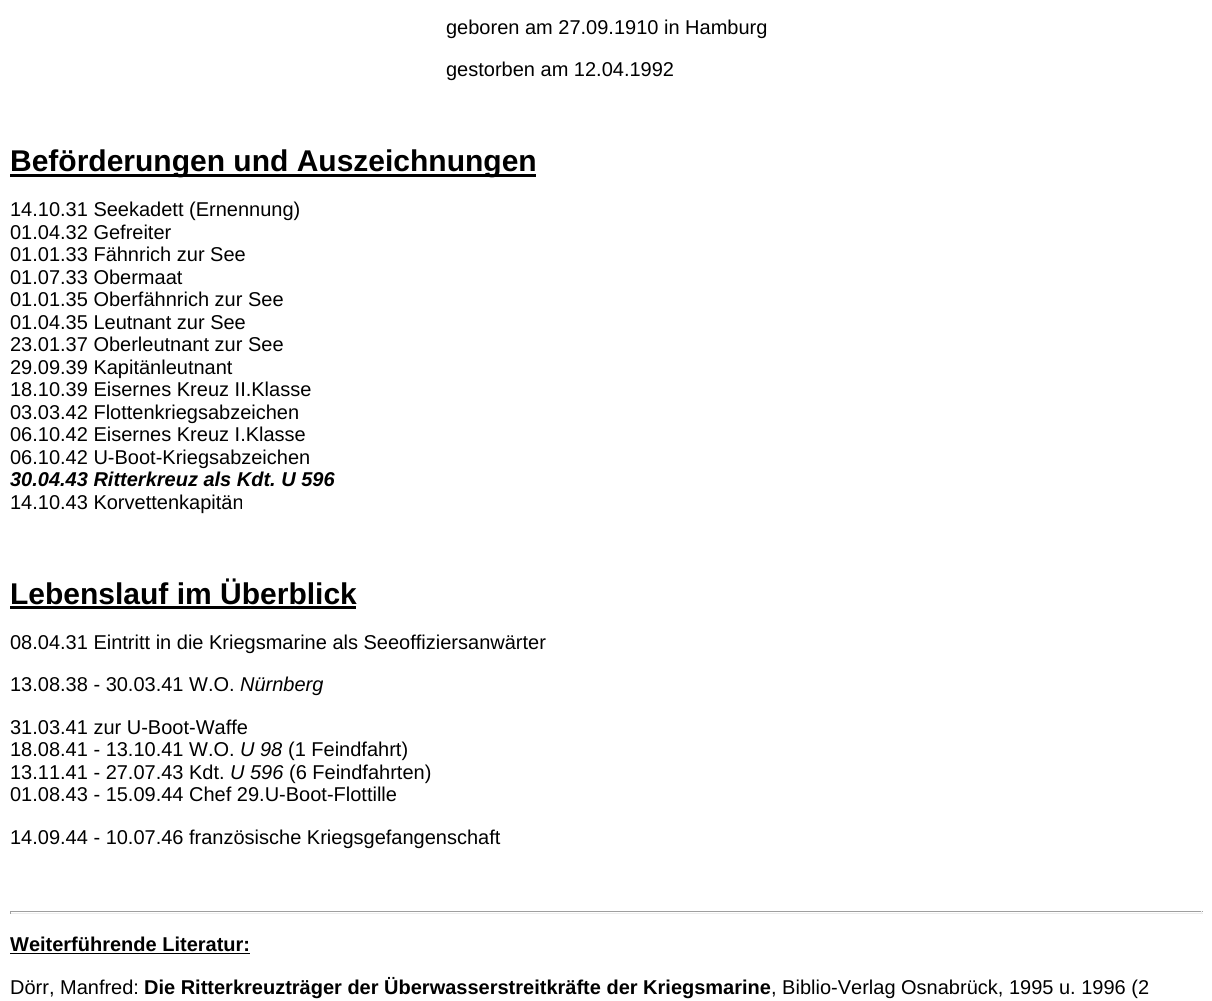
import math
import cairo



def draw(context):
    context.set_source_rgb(1, 1, 1)
    context.paint()
    context.set_source_rgb(0, 0, 0)
    context.rectangle(10, 174, 526, 3)
    context.fill()
    context.rectangle(10, 606, 346, 3)
    context.fill()
    context.set_source_rgb(159 / 255, 159 / 255, 159 / 255)
    context.rectangle(10, 911, 1193, 1)
    context.fill()
    context.set_source_rgb(238 / 255, 238 / 255, 238 / 255)
    context.rectangle(1201, 911, 1, 3)
    context.fill()
    context.rectangle(10, 913, 1193, 1)
    context.fill()
    context.set_source_rgb(159 / 255, 159 / 255, 159 / 255)
    context.rectangle(10, 911, 1, 3)
    context.fill()
    context.set_source_rgb(0, 0, 0)
    context.rectangle(10, 953, 240, 1)
    context.fill()
    context.select_font_face("Liberation Sans")
    context.set_font_size(20)
    context.move_to(446, 34)
    context.show_text("geboren am 27.09.1910 in Hamburg")
    context.move_to(446, 76)
    context.show_text("gestorben am 12.04.1992")
    context.select_font_face("Liberation Sans", cairo.FontSlant.NORMAL, cairo.FontWeight.BOLD)
    context.set_font_size(30)
    context.move_to(10, 171)
    context.show_text("Beförderungen und Auszeichnungen")
    context.select_font_face("Liberation Sans")
    context.set_font_size(20)
    context.move_to(10, 216)
    context.show_text("14.10.31 Seekadett (Ernennung)")
    context.move_to(10, 239)
    context.show_text("01.04.32 Gefreiter")
    context.move_to(10, 261)
    context.show_text("01.01.33 Fähnrich zur See")
    context.move_to(10, 284)
    context.show_text("01.07.33 Obermaat")
    context.move_to(10, 306)
    context.show_text("01.01.35 Oberfähnrich zur See")
    context.move_to(10, 329)
    context.show_text("01.04.35 Leutnant zur See")
    context.move_to(10, 351)
    context.show_text("23.01.37 Oberleutnant zur See")
    context.move_to(10, 374)
    context.show_text("29.09.39 Kapitänleutnant")
    context.move_to(10, 396)
    context.show_text("18.10.39 Eisernes Kreuz II.Klasse")
    context.move_to(10, 419)
    context.show_text("03.03.42 Flottenkriegsabzeichen")
    context.move_to(10, 441)
    context.show_text("06.10.42 Eisernes Kreuz I.Klasse")
    context.move_to(10, 464)
    context.show_text("06.10.42 U-Boot-Kriegsabzeichen")
    context.select_font_face("Liberation Sans", cairo.FontSlant.ITALIC, cairo.FontWeight.BOLD)
    context.move_to(10, 486)
    context.show_text("30.04.43 Ritterkreuz als Kdt. U 596")
    context.select_font_face("Liberation Sans")
    context.move_to(10, 509)
    context.show_text("14.10.43 Korvettenkapitän")
    context.select_font_face("Liberation Sans", cairo.FontSlant.NORMAL, cairo.FontWeight.BOLD)
    context.set_font_size(30)
    context.move_to(10, 604)
    context.show_text("Lebenslauf im Überblick")
    context.select_font_face("Liberation Sans")
    context.set_font_size(20)
    context.move_to(10, 649)
    context.show_text("08.04.31 Eintritt in die Kriegsmarine als Seeoffiziersanwärter")
    context.move_to(10, 691)
    context.show_text("13.08.38 - 30.03.41 W.O.")
    context.select_font_face("Liberation Sans", cairo.FontSlant.ITALIC)
    context.move_to(240, 691)
    context.show_text("Nürnberg")
    context.select_font_face("Liberation Sans")
    context.move_to(10, 734)
    context.show_text("31.03.41 zur U-Boot-Waffe")
    context.move_to(10, 756)
    context.show_text("18.08.41 - 13.10.41 W.O.")
    context.select_font_face("Liberation Sans", cairo.FontSlant.ITALIC)
    context.move_to(240, 756)
    context.show_text("U 98")
    context.select_font_face("Liberation Sans")
    context.move_to(288, 756)
    context.show_text("(1 Feindfahrt)")
    context.move_to(10, 779)
    context.show_text("13.11.41 - 27.07.43 Kdt.")
    context.select_font_face("Liberation Sans", cairo.FontSlant.ITALIC)
    context.move_to(230, 779)
    context.show_text("U 596")
    context.select_font_face("Liberation Sans")
    context.move_to(289, 779)
    context.show_text("(6 Feindfahrten)")
    context.move_to(10, 801)
    context.show_text("01.08.43 - 15.09.44 Chef 29.U-Boot-Flottille")
    context.move_to(10, 844)
    context.show_text("14.09.44 - 10.07.46 französische Kriegsgefangenschaft")
    context.select_font_face("Liberation Sans", cairo.FontSlant.NORMAL, cairo.FontWeight.BOLD)
    context.move_to(10, 951)
    context.show_text("Weiterführende Literatur:")
    context.select_font_face("Liberation Sans")
    context.move_to(10, 994)
    context.show_text("Dörr, Manfred:")
    context.select_font_face("Liberation Sans", cairo.FontSlant.NORMAL, cairo.FontWeight.BOLD)
    context.move_to(144, 994)
    context.show_text("Die Ritterkreuzträger der Überwasserstreitkräfte der Kriegsmarine")
    context.select_font_face("Liberation Sans")
    context.move_to(771, 994)
    context.show_text(", Biblio-Verlag Osnabrück, 1995 u. 1996 (2")


surface = cairo.ImageSurface(cairo.Format.RGB24, 1212, 1001)
context = cairo.Context(surface)
options = cairo.FontOptions()
options.set_hint_metrics(cairo.HintMetrics.OFF)
options.set_hint_style(cairo.HintStyle.NONE)
context.set_font_options(options)
context.set_miter_limit(4)
draw(context)
surface.write_to_png("out.png")
